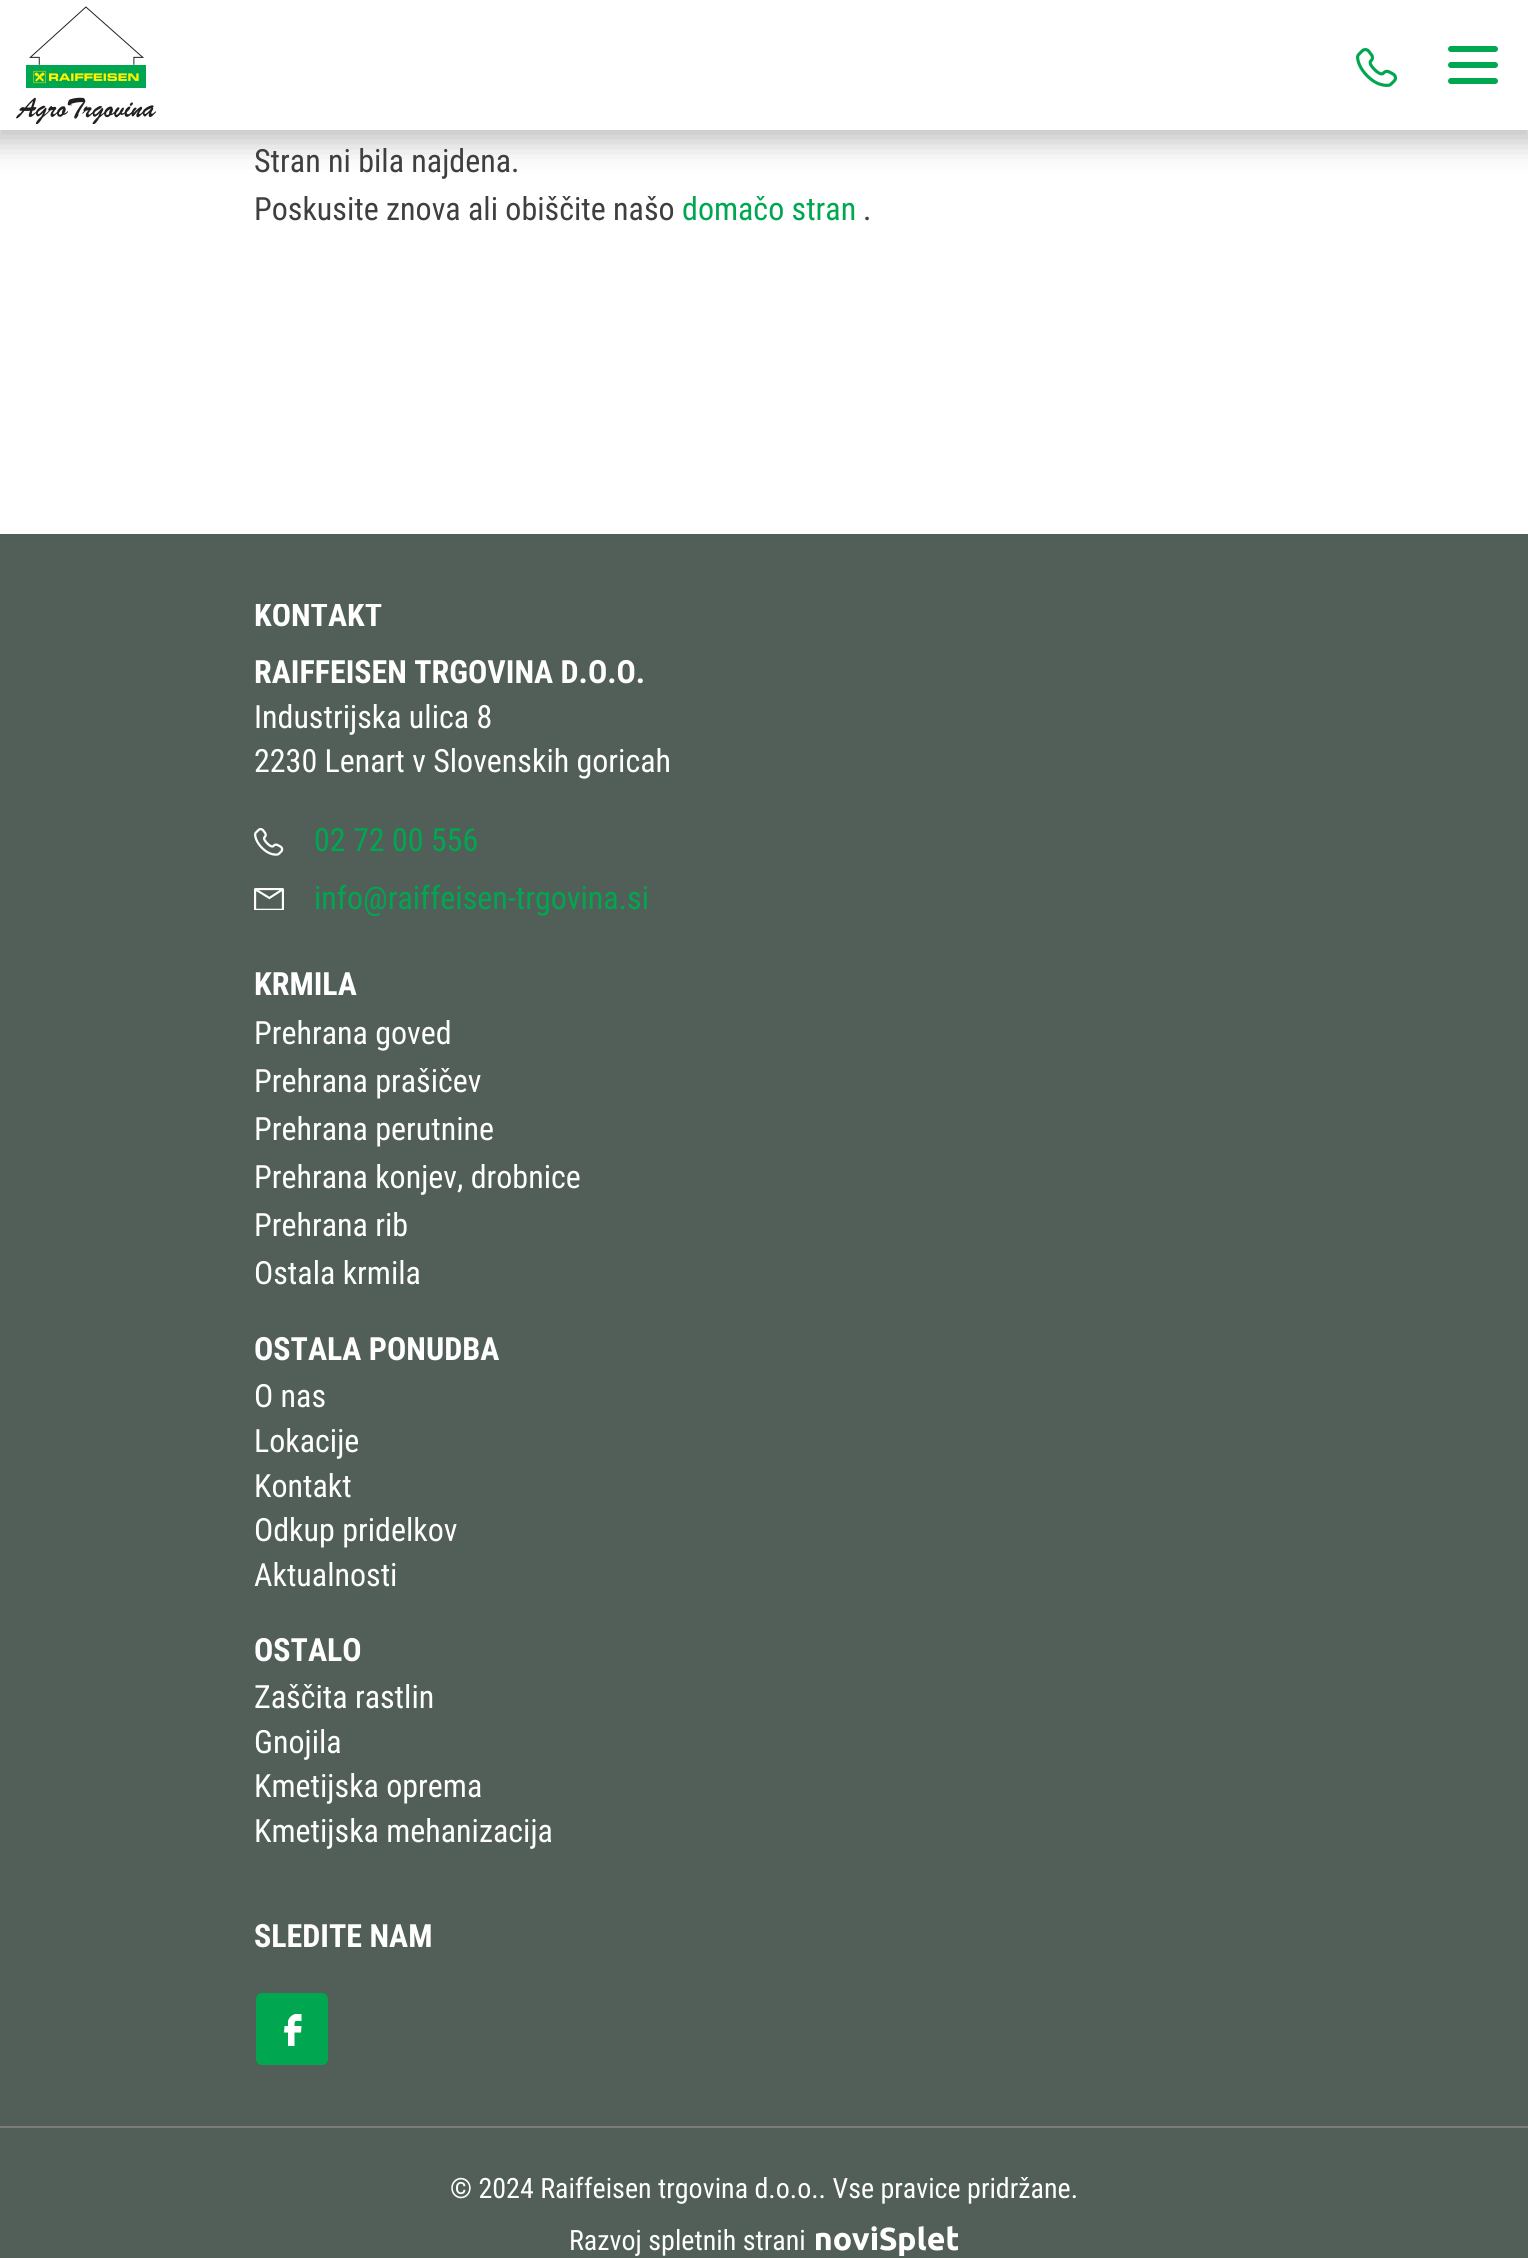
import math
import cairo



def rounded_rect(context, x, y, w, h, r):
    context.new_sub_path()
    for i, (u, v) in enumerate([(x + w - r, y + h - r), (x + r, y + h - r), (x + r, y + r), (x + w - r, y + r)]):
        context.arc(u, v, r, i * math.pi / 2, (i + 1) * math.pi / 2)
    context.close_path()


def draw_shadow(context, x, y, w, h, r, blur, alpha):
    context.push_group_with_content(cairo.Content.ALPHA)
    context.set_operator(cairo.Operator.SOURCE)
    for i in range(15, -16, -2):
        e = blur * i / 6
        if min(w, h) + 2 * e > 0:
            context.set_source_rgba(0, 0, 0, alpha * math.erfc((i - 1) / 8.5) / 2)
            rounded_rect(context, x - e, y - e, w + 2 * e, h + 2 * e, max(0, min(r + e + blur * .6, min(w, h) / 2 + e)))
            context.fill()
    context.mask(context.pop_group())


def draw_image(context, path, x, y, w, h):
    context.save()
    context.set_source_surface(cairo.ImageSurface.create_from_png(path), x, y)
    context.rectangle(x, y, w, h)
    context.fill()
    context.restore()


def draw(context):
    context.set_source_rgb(1, 1, 1)
    context.paint()
    context.set_source_rgb(0, 0, 0)
    draw_shadow(context, -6, 0, 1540, 142, 0, 15, 0.25)
    context.set_source_rgb(1, 1, 1)
    context.rectangle(0, 0, 1528, 130)
    context.fill()
    draw_image(context, "images/1.png", 16, 6, 140, 118)
    draw_image(context, "images/2.png", 1356, 48, 41, 39)
    context.set_source_rgb(0, 166 / 255, 80 / 255)
    rounded_rect(context, 1448, 46, 50, 6, 3)
    context.fill()
    rounded_rect(context, 1448, 62, 50, 6, 3)
    context.fill()
    rounded_rect(context, 1448, 78, 50, 6, 3)
    context.fill()
    context.set_source_rgb(81 / 255, 95 / 255, 88 / 255)
    context.rectangle(0, 534, 1528, 1724)
    context.fill()
    draw_image(context, "images/3.png", 254, 828, 30, 28)
    draw_image(context, "images/4.png", 254, 888, 30, 22)
    context.set_source_rgb(0, 166 / 255, 80 / 255)
    rounded_rect(context, 256, 1993, 72, 72, 6)
    context.fill()
    context.set_source_rgb(1, 1, 1)
    context.new_path()
    context.move_to(288, 2046)
    context.line_to(294.5, 2046)
    context.line_to(294.5, 2032.5)
    context.line_to(301, 2032.5)
    context.line_to(301.5, 2026)
    context.line_to(294.5, 2026)
    context.curve_to(294.5, 2019.5, 295, 2021, 301.5, 2021)
    context.line_to(301.5, 2014)
    context.line_to(295.5, 2014)
    context.curve_to(292, 2014.5, 289, 2017.5, 288, 2021)
    context.line_to(288, 2026)
    context.line_to(284.5, 2026)
    context.line_to(284, 2032.5)
    context.line_to(288, 2032.5)
    context.close_path()
    context.fill()
    context.set_source_rgb(124 / 255, 124 / 255, 124 / 255)
    context.rectangle(0, 2126, 1528, 2)
    context.fill()
    draw_image(context, "images/5.png", 816, 2226, 142, 30)
    context.select_font_face("Roboto Condensed")
    context.set_font_size(32)
    context.set_source_rgb(63 / 255, 63 / 255, 63 / 255)
    context.move_to(254, 172)
    context.show_text("Stran ni bila najdena.")
    context.move_to(254, 220)
    context.show_text("Poskusite znova ali obiščite našo")
    context.set_source_rgb(0, 166 / 255, 80 / 255)
    context.move_to(682, 220)
    context.show_text("domačo stran")
    context.set_source_rgb(63 / 255, 63 / 255, 63 / 255)
    context.move_to(863, 220)
    context.show_text(".")
    context.save()
    context.rectangle(0, 604, 1528, 1512)
    context.clip()
    context.select_font_face("Roboto Condensed", cairo.FontSlant.NORMAL, cairo.FontWeight.BOLD)
    context.set_source_rgb(1, 1, 1)
    context.move_to(254, 626)
    context.show_text("KONTAKT")
    context.restore()
    context.select_font_face("Roboto Condensed", cairo.FontSlant.NORMAL, cairo.FontWeight.BOLD)
    context.set_source_rgb(1, 1, 1)
    context.move_to(254, 683)
    context.show_text("RAIFFEISEN TRGOVINA D.O.O.")
    context.select_font_face("Roboto Condensed")
    context.move_to(254, 728)
    context.show_text("Industrijska ulica 8")
    context.move_to(254, 772)
    context.show_text("2230 Lenart v Slovenskih goricah")
    context.set_source_rgb(0, 166 / 255, 80 / 255)
    context.move_to(314, 851)
    context.show_text("02 72 00 556")
    context.move_to(314, 909)
    context.show_text("info@raiffeisen-trgovina.si")
    context.select_font_face("Roboto Condensed", cairo.FontSlant.NORMAL, cairo.FontWeight.BOLD)
    context.set_source_rgb(1, 1, 1)
    context.move_to(254, 995)
    context.show_text("KRMILA")
    context.select_font_face("Roboto Condensed")
    context.move_to(254, 1044)
    context.show_text("Prehrana goved")
    context.move_to(254, 1092)
    context.show_text("Prehrana prašičev")
    context.move_to(254, 1140)
    context.show_text("Prehrana perutnine")
    context.move_to(254, 1188)
    context.show_text("Prehrana konjev, drobnice")
    context.move_to(254, 1236)
    context.show_text("Prehrana rib")
    context.move_to(254, 1284)
    context.show_text("Ostala krmila")
    context.select_font_face("Roboto Condensed", cairo.FontSlant.NORMAL, cairo.FontWeight.BOLD)
    context.move_to(254, 1360)
    context.show_text("OSTALA PONUDBA")
    context.select_font_face("Roboto Condensed")
    context.move_to(254, 1407)
    context.show_text("O nas")
    context.move_to(254, 1452)
    context.show_text("Lokacije")
    context.move_to(254, 1497)
    context.show_text("Kontakt")
    context.move_to(254, 1541)
    context.show_text("Odkup pridelkov")
    context.move_to(254, 1586)
    context.show_text("Aktualnosti")
    context.select_font_face("Roboto Condensed", cairo.FontSlant.NORMAL, cairo.FontWeight.BOLD)
    context.move_to(254, 1661)
    context.show_text("OSTALO")
    context.select_font_face("Roboto Condensed")
    context.move_to(254, 1708)
    context.show_text("Zaščita rastlin")
    context.move_to(254, 1753)
    context.show_text("Gnojila")
    context.move_to(254, 1797)
    context.show_text("Kmetijska oprema")
    context.move_to(254, 1842)
    context.show_text("Kmetijska mehanizacija")
    context.select_font_face("Roboto Condensed", cairo.FontSlant.NORMAL, cairo.FontWeight.BOLD)
    context.move_to(254, 1947)
    context.show_text("SLEDITE NAM")
    context.select_font_face("Roboto Condensed")
    context.set_font_size(28)
    context.move_to(450, 2198)
    context.show_text("© 2024 Raiffeisen trgovina d.o.o.. Vse pravice pridržane.")
    context.move_to(569, 2250)
    context.show_text("Razvoj spletnih strani")


surface = cairo.ImageSurface(cairo.Format.RGB24, 1528, 2258)
context = cairo.Context(surface)
options = cairo.FontOptions()
options.set_hint_metrics(cairo.HintMetrics.OFF)
options.set_hint_style(cairo.HintStyle.NONE)
context.set_font_options(options)
context.set_miter_limit(4)
draw(context)
surface.write_to_png("out.png")
